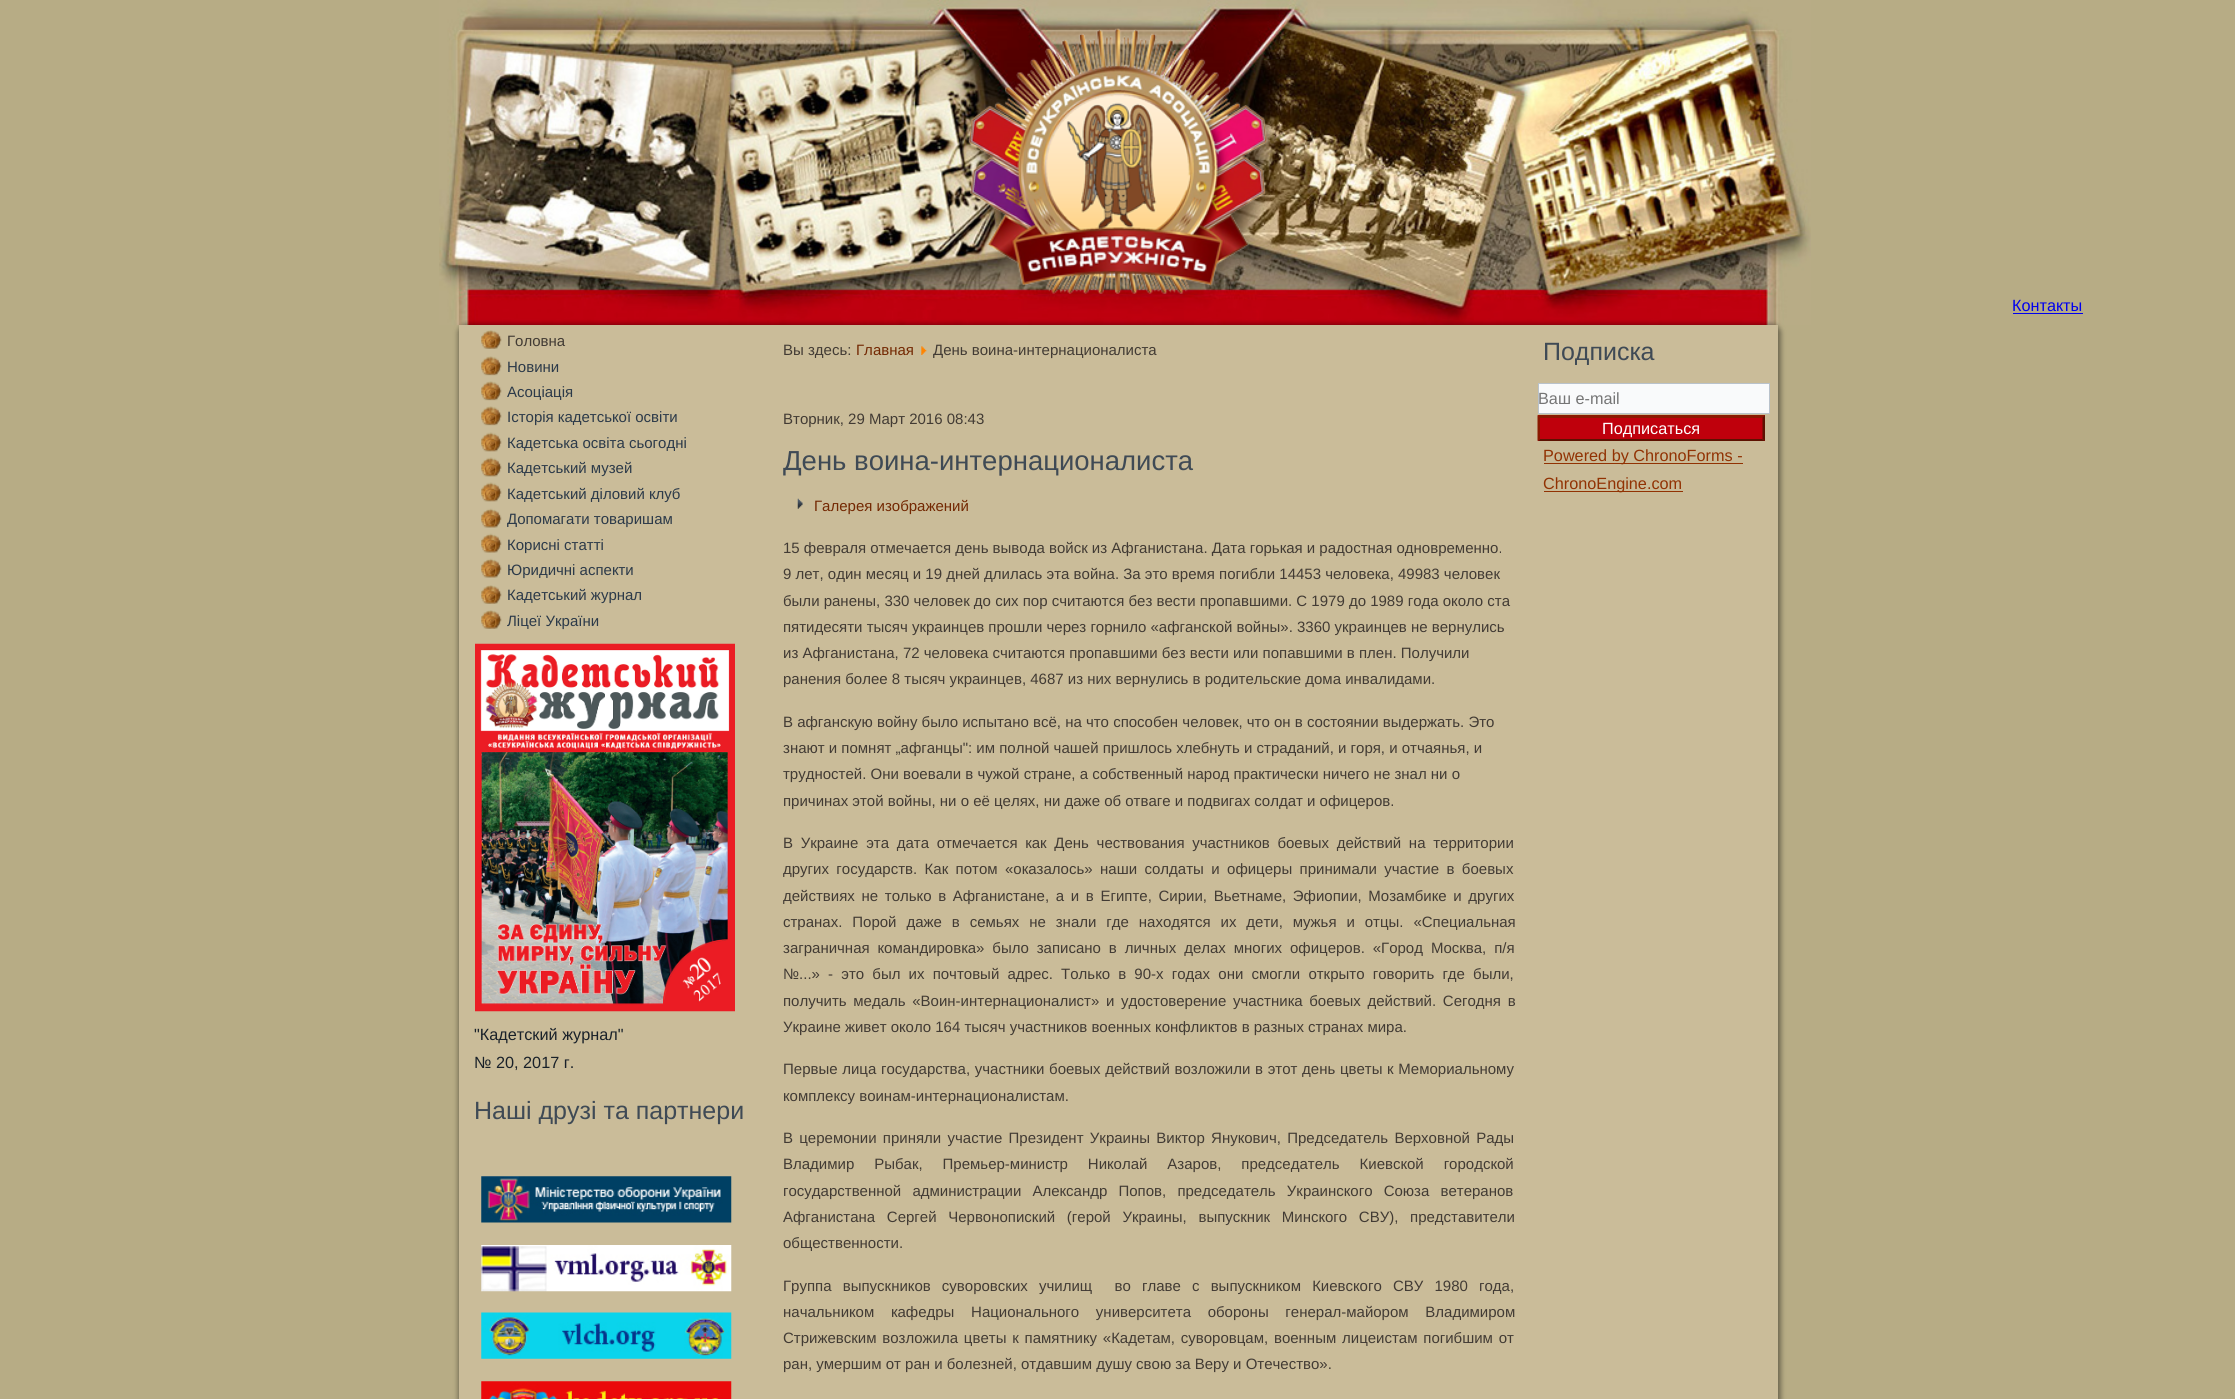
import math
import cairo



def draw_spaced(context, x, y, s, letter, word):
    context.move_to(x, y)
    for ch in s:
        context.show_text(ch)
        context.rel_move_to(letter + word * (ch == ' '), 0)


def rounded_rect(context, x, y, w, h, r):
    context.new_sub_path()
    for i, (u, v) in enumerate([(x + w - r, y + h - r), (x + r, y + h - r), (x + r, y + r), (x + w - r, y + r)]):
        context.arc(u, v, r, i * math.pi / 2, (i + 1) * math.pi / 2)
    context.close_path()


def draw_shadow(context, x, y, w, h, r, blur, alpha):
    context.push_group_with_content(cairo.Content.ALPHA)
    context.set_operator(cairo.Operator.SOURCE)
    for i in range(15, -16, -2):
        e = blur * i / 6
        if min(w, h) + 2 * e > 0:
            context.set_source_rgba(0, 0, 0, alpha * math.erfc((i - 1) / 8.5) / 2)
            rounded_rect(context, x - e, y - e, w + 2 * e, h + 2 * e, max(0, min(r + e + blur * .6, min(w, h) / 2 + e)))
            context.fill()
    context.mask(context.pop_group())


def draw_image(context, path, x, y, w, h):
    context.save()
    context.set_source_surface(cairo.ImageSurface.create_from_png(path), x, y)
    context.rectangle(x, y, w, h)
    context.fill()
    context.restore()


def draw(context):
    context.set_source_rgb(183 / 255, 172 / 255, 133 / 255)
    context.paint()
    draw_image(context, "images/1.png", 439, 0, 1372, 325)
    draw_image(context, "images/2.png", 968, 28, 300, 266)
    context.set_source_rgb(0, 0, 238 / 255)
    context.rectangle(2013, 313, 70, 1)
    context.fill()
    context.set_source_rgb(0, 0, 0)
    draw_shadow(context, 458, 324, 1323, 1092, 9, 2.5, 0.4)
    context.set_source_rgb(202 / 255, 188 / 255, 153 / 255)
    context.rectangle(459, 325, 1319, 1074)
    context.fill()
    draw_image(context, "images/3.png", 481, 330, 21, 19)
    draw_image(context, "images/4.png", 481, 356, 21, 20)
    draw_image(context, "images/4.png", 481, 381, 21, 20)
    draw_image(context, "images/4.png", 481, 406, 21, 20)
    draw_image(context, "images/5.png", 481, 432, 21, 20)
    draw_image(context, "images/5.png", 481, 457, 21, 20)
    draw_image(context, "images/5.png", 481, 482, 21, 20)
    draw_image(context, "images/6.png", 481, 508, 21, 20)
    draw_image(context, "images/6.png", 481, 533, 21, 20)
    draw_image(context, "images/6.png", 481, 558, 21, 20)
    draw_image(context, "images/7.png", 481, 585, 21, 19)
    draw_image(context, "images/3.png", 481, 610, 21, 19)
    draw_image(context, "images/8.png", 475, 643, 260, 369)
    draw_image(context, "images/9.png", 481, 1176, 251, 47)
    draw_image(context, "images/10.png", 481, 1245, 251, 47)
    draw_image(context, "images/11.png", 481, 1312, 251, 47)
    draw_image(context, "images/12.png", 481, 1381, 251, 18)
    draw_image(context, "images/13.png", 921, 346, 6, 9)
    draw_image(context, "images/14.png", 797, 498, 6, 11)
    context.set_source_rgb(249 / 255, 250 / 255, 251 / 255)
    context.rectangle(1538.5, 383.5, 231, 30)
    context.fill_preserve()
    context.set_source_rgb(185 / 255, 194 / 255, 203 / 255)
    context.set_line_width(1)
    context.stroke()
    context.set_source_rgb(191 / 255, 0, 12 / 255)
    context.rectangle(1538, 415, 227, 26)
    context.fill()
    context.set_source_rgb(139 / 255, 25 / 255, 1 / 255)
    context.new_path()
    context.move_to(1538, 415)
    context.line_to(1765, 415)
    context.line_to(1762, 418)
    context.line_to(1540, 418)
    context.close_path()
    context.fill()
    context.set_source_rgb(93 / 255, 17 / 255, 1 / 255)
    context.new_path()
    context.move_to(1765, 415)
    context.line_to(1765, 441)
    context.line_to(1762.5, 439)
    context.line_to(1762.5, 417.5)
    context.close_path()
    context.fill()
    context.new_path()
    context.move_to(1765, 441)
    context.line_to(1538, 441)
    context.line_to(1540, 439)
    context.line_to(1762, 439)
    context.close_path()
    context.fill()
    context.set_source_rgb(139 / 255, 25 / 255, 1 / 255)
    context.new_path()
    context.move_to(1537.5, 441)
    context.line_to(1537.5, 415)
    context.line_to(1540, 417.5)
    context.line_to(1540, 439)
    context.close_path()
    context.fill()
    context.set_source_rgb(145 / 255, 50 / 255, 3 / 255)
    context.rectangle(1544, 463, 199, 1)
    context.fill()
    context.rectangle(1544, 491, 139, 1)
    context.fill()
    context.select_font_face("Liberation Sans")
    context.set_font_size(16.25)
    context.set_source_rgb(0, 0, 238 / 255)
    context.move_to(2012, 311)
    context.show_text("Контакты")
    context.set_font_size(15)
    context.set_source_rgb(66 / 255, 59 / 255, 52 / 255)
    context.move_to(507, 346)
    context.show_text("Головна")
    context.set_source_rgb(44 / 255, 58 / 255, 73 / 255)
    context.move_to(507, 372)
    context.show_text("Новини")
    context.move_to(507, 397)
    context.show_text("Асоціація")
    context.move_to(507, 422)
    context.show_text("Історія кадетської освіти")
    context.move_to(507, 448)
    context.show_text("Кадетська освіта сьогодні")
    context.move_to(507, 473)
    context.show_text("Кадетський музей")
    context.move_to(507, 499)
    context.show_text("Кадетський діловий клуб")
    context.move_to(507, 524)
    context.show_text("Допомагати товаришам")
    context.move_to(507, 550)
    context.show_text("Корисні статті")
    context.move_to(507, 575)
    context.show_text("Юридичні аспекти")
    context.move_to(507, 600)
    context.show_text("Кадетський журнал")
    context.move_to(507, 626)
    context.show_text("Ліцеї України")
    context.set_font_size(16.25)
    context.set_source_rgb(25 / 255, 33 / 255, 41 / 255)
    context.move_to(474, 1040)
    context.show_text("\"Кадетский журнал\"")
    context.move_to(474, 1068)
    context.show_text("№ 20, 2017 г.")
    context.set_font_size(25)
    context.set_source_rgb(63 / 255, 74 / 255, 85 / 255)
    context.move_to(474, 1119)
    context.show_text("Наші друзі та партнери")
    context.set_font_size(15)
    context.set_source_rgb(66 / 255, 59 / 255, 52 / 255)
    context.move_to(783, 355)
    context.show_text("Вы здесь:")
    context.set_source_rgb(115 / 255, 40 / 255, 2 / 255)
    context.move_to(856, 355)
    context.show_text("Главная")
    context.set_source_rgb(66 / 255, 59 / 255, 52 / 255)
    context.move_to(933, 355)
    context.show_text("День воина-интернационалиста")
    context.move_to(783, 424)
    context.show_text("Вторник, 29 Март 2016 08:43")
    context.set_font_size(27.5)
    context.set_source_rgb(63 / 255, 74 / 255, 85 / 255)
    context.move_to(783, 470)
    context.show_text("День воина-интернационалиста")
    context.set_font_size(15)
    context.set_source_rgb(115 / 255, 40 / 255, 2 / 255)
    context.move_to(814, 511)
    context.show_text("Галерея изображений")
    context.set_source_rgb(66 / 255, 59 / 255, 52 / 255)
    context.move_to(783, 553)
    context.show_text("15 февраля отмечается день вывода войск из Афганистана. Дата горькая и радостная одновременно.")
    context.move_to(783, 579)
    context.show_text("9 лет, один месяц и 19 дней длилась эта война. За это время погибли 14453 человека, 49983 человек")
    context.move_to(783, 606)
    context.show_text("были ранены, 330 человек до сих пор считаются без вести пропавшими. С 1979 до 1989 года около ста")
    context.move_to(783, 632)
    context.show_text("пятидесяти тысяч украинцев прошли через горнило «афганской войны». 3360 украинцев не вернулись")
    context.move_to(783, 658)
    context.show_text("из Афганистана, 72 человека считаются пропавшими без вести или попавшими в плен. Получили")
    context.move_to(783, 684)
    context.show_text("ранения более 8 тысяч украинцев, 4687 из них вернулись в родительские дома инвалидами.")
    context.move_to(783, 727)
    context.show_text("В афганскую войну было испытано всё, на что способен человек, что он в состоянии выдержать. Это")
    context.move_to(783, 753)
    context.show_text("знают и помнят „афганцы\": им полной чашей пришлось хлебнуть и страданий, и горя, и отчаянья, и")
    context.move_to(783, 779)
    context.show_text("трудностей. Они воевали в чужой стране, а собственный народ практически ничего не знал ни о")
    context.move_to(783, 806)
    context.show_text("причинах этой войны, ни о её целях, ни даже об отваге и подвигах солдат и офицеров.")
    draw_spaced(context, 783, 848, "В Украине эта дата отмечается как День чествования участников боевых действий на территории", 0, 3.5)
    draw_spaced(context, 783, 874, "других государств. Как потом «оказалось» наши солдаты и офицеры принимали участие в боевых", 0, 3.25)
    draw_spaced(context, 783, 901, "действиях не только в Афганистане, а и в Египте, Сирии, Вьетнаме, Эфиопии, Мозамбике и других", 0, 2.5)
    draw_spaced(context, 783, 927, "странах. Порой даже в семьях не знали где находятся их дети, мужья и отцы. «Специальная", 0, 5.75)
    draw_spaced(context, 783, 953, "заграничная командировка» было записано в личных делах многих офицеров. «Город Москва, п/я", 0, 3.75)
    draw_spaced(context, 783, 979, "№...» - это был их почтовый адрес. Только в 90-х годах они смогли открыто говорить где были,", 0, 4)
    draw_spaced(context, 783, 1006, "получить медаль «Воин-интернационалист» и удостоверение участника боевых действий. Сегодня в", 0, 2.5)
    context.move_to(783, 1032)
    context.show_text("Украине живет около 164 тысяч участников военных конфликтов в разных странах мира.")
    draw_spaced(context, 783, 1074, "Первые лица государства, участники боевых действий возложили в этот день цветы к Мемориальному", 0, 0.5)
    context.move_to(783, 1101)
    context.show_text("комплексу воинам-интернационалистам.")
    draw_spaced(context, 783, 1143, "В церемонии приняли участие Президент Украины Виктор Янукович, Председатель Верховной Рады", 0, 2.1)
    draw_spaced(context, 783, 1169, "Владимир Рыбак, Премьер-министр Николай Азаров, председатель Киевской городской", 0, 15.75)
    draw_spaced(context, 783, 1196, "государственной администрации Александр Попов, председатель Украинского Союза ветеранов", 0, 7)
    draw_spaced(context, 783, 1222, "Афганистана Сергей Червонопиский (герой Украины, выпускник Минского СВУ), представители", 0, 7.5)
    context.move_to(783, 1248)
    context.show_text("общественности.")
    draw_spaced(context, 783, 1291, "Группа выпускников суворовских училищ  во главе с выпускником Киевского СВУ 1980 года,", 0, 7)
    draw_spaced(context, 783, 1317, "начальником кафедры Национального университета обороны генерал-майором Владимиром", 0, 12.5)
    draw_spaced(context, 783, 1343, "Стрижевским возложила цветы к памятнику «Кадетам, суворовцам, военным лицеистам погибшим от", 0, 1.6)
    context.move_to(783, 1369)
    context.show_text("ран, умершим от ран и болезней, отдавшим душу свою за Веру и Отечество».")
    context.set_font_size(25)
    context.set_source_rgb(63 / 255, 74 / 255, 85 / 255)
    context.move_to(1543, 360)
    context.show_text("Подписка")
    context.set_font_size(16.25)
    context.set_source_rgb(117 / 255, 117 / 255, 117 / 255)
    context.move_to(1538, 404)
    context.show_text("Ваш e-mail")
    context.set_source_rgb(1, 1, 1)
    context.move_to(1602, 434)
    context.show_text("Подписаться")
    context.set_source_rgb(145 / 255, 50 / 255, 3 / 255)
    context.move_to(1543, 461)
    context.show_text("Powered by ChronoForms -")
    context.move_to(1543, 489)
    context.show_text("ChronoEngine.com")


surface = cairo.ImageSurface(cairo.Format.RGB24, 2235, 1399)
context = cairo.Context(surface)
options = cairo.FontOptions()
options.set_hint_metrics(cairo.HintMetrics.OFF)
options.set_hint_style(cairo.HintStyle.NONE)
context.set_font_options(options)
context.set_miter_limit(4)
draw(context)
surface.write_to_png("out.png")
